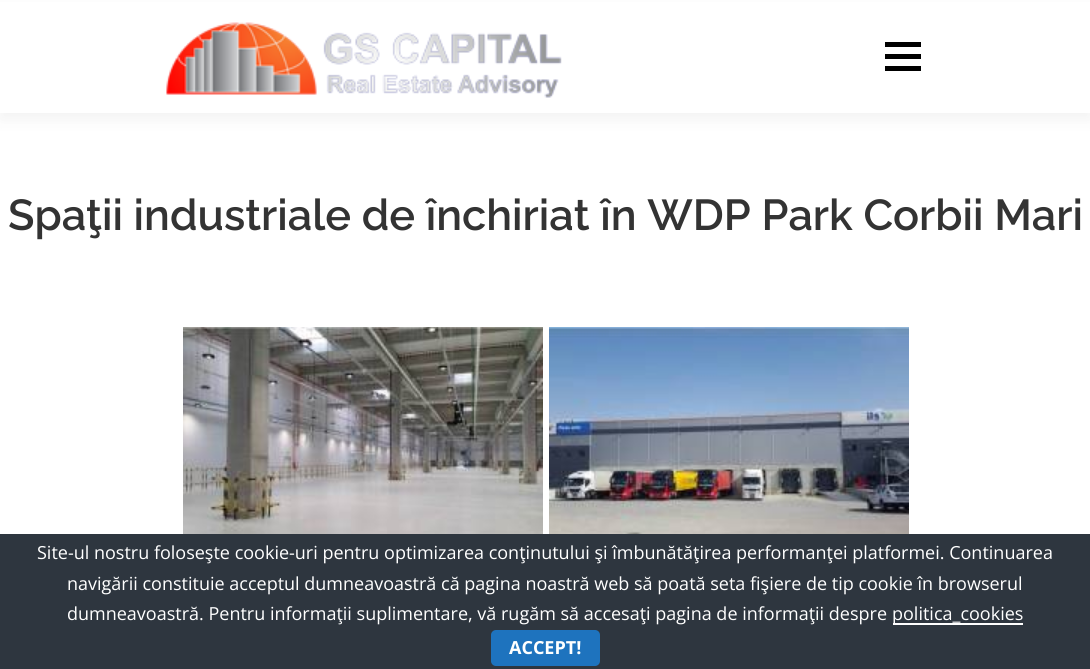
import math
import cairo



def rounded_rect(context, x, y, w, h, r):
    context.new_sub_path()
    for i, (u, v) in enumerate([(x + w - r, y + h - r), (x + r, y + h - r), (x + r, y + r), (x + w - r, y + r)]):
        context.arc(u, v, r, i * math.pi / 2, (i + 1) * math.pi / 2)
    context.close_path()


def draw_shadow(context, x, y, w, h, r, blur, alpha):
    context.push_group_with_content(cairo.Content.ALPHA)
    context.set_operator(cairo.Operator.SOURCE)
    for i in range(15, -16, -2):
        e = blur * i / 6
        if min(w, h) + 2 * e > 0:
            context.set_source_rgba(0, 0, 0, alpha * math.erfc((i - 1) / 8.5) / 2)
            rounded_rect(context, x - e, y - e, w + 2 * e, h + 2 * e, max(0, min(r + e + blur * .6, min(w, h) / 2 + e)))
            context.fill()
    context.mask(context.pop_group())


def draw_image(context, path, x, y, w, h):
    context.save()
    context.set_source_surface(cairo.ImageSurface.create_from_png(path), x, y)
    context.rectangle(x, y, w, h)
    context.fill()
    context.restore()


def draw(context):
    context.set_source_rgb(1, 1, 1)
    context.paint()
    context.set_source_rgb(50 / 255, 50 / 255, 50 / 255)
    draw_shadow(context, 0, 8, 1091, 112, 0, 7.5, 0.06)
    context.set_source_rgb(1, 1, 1)
    context.rectangle(0, 2, 1090, 111)
    context.fill()
    draw_image(context, "images/1.png", 166, 22, 396, 76)
    context.set_source_rgb(0, 0, 0)
    context.rectangle(885, 54, 36, 5)
    context.fill()
    context.rectangle(885, 42, 36, 5)
    context.fill()
    context.rectangle(885, 66, 36, 5)
    context.fill()
    draw_image(context, "images/2.png", 183, 327, 360, 207)
    draw_image(context, "images/3.png", 549, 327, 360, 207)
    context.set_source_rgb(46 / 255, 54 / 255, 63 / 255)
    context.rectangle(0, 534, 1090, 135)
    context.fill()
    context.set_source_rgb(1, 1, 1)
    context.rectangle(893, 623, 130, 2)
    context.fill()
    context.set_source_rgb(30 / 255, 115 / 255, 190 / 255)
    rounded_rect(context, 491, 630, 109, 36, 5)
    context.fill()
    context.select_font_face("Raleway SemiBold")
    context.set_font_size(43.3)
    context.set_source_rgb(51 / 255, 51 / 255, 51 / 255)
    context.move_to(8, 230)
    context.show_text("Spaţii industriale de închiriat în WDP Park Corbii Mari")
    context.select_font_face("Open Sans")
    context.set_font_size(18)
    context.set_source_rgb(1, 1, 1)
    context.move_to(37, 559)
    context.show_text("Site-ul nostru foloseşte cookie-uri pentru optimizarea conţinutului şi îmbunătăţirea performanţei platformei. Continuarea")
    context.move_to(67, 590)
    context.show_text("navigării constituie acceptul dumneavoastră că pagina noastră web să poată seta fişiere de tip cookie în browserul")
    context.move_to(67, 620)
    context.show_text("dumneavoastră. Pentru informaţii suplimentare, vă rugăm să accesaţi pagina de informaţii despre")
    context.move_to(892, 620)
    context.show_text("politica_cookies")
    context.select_font_face("Open Sans", cairo.FontSlant.NORMAL, cairo.FontWeight.BOLD)
    context.move_to(509, 654)
    context.show_text("ACCEPT!")


surface = cairo.ImageSurface(cairo.Format.RGB24, 1090, 669)
context = cairo.Context(surface)
options = cairo.FontOptions()
options.set_hint_metrics(cairo.HintMetrics.OFF)
options.set_hint_style(cairo.HintStyle.NONE)
context.set_font_options(options)
context.set_miter_limit(4)
draw(context)
surface.write_to_png("out.png")
